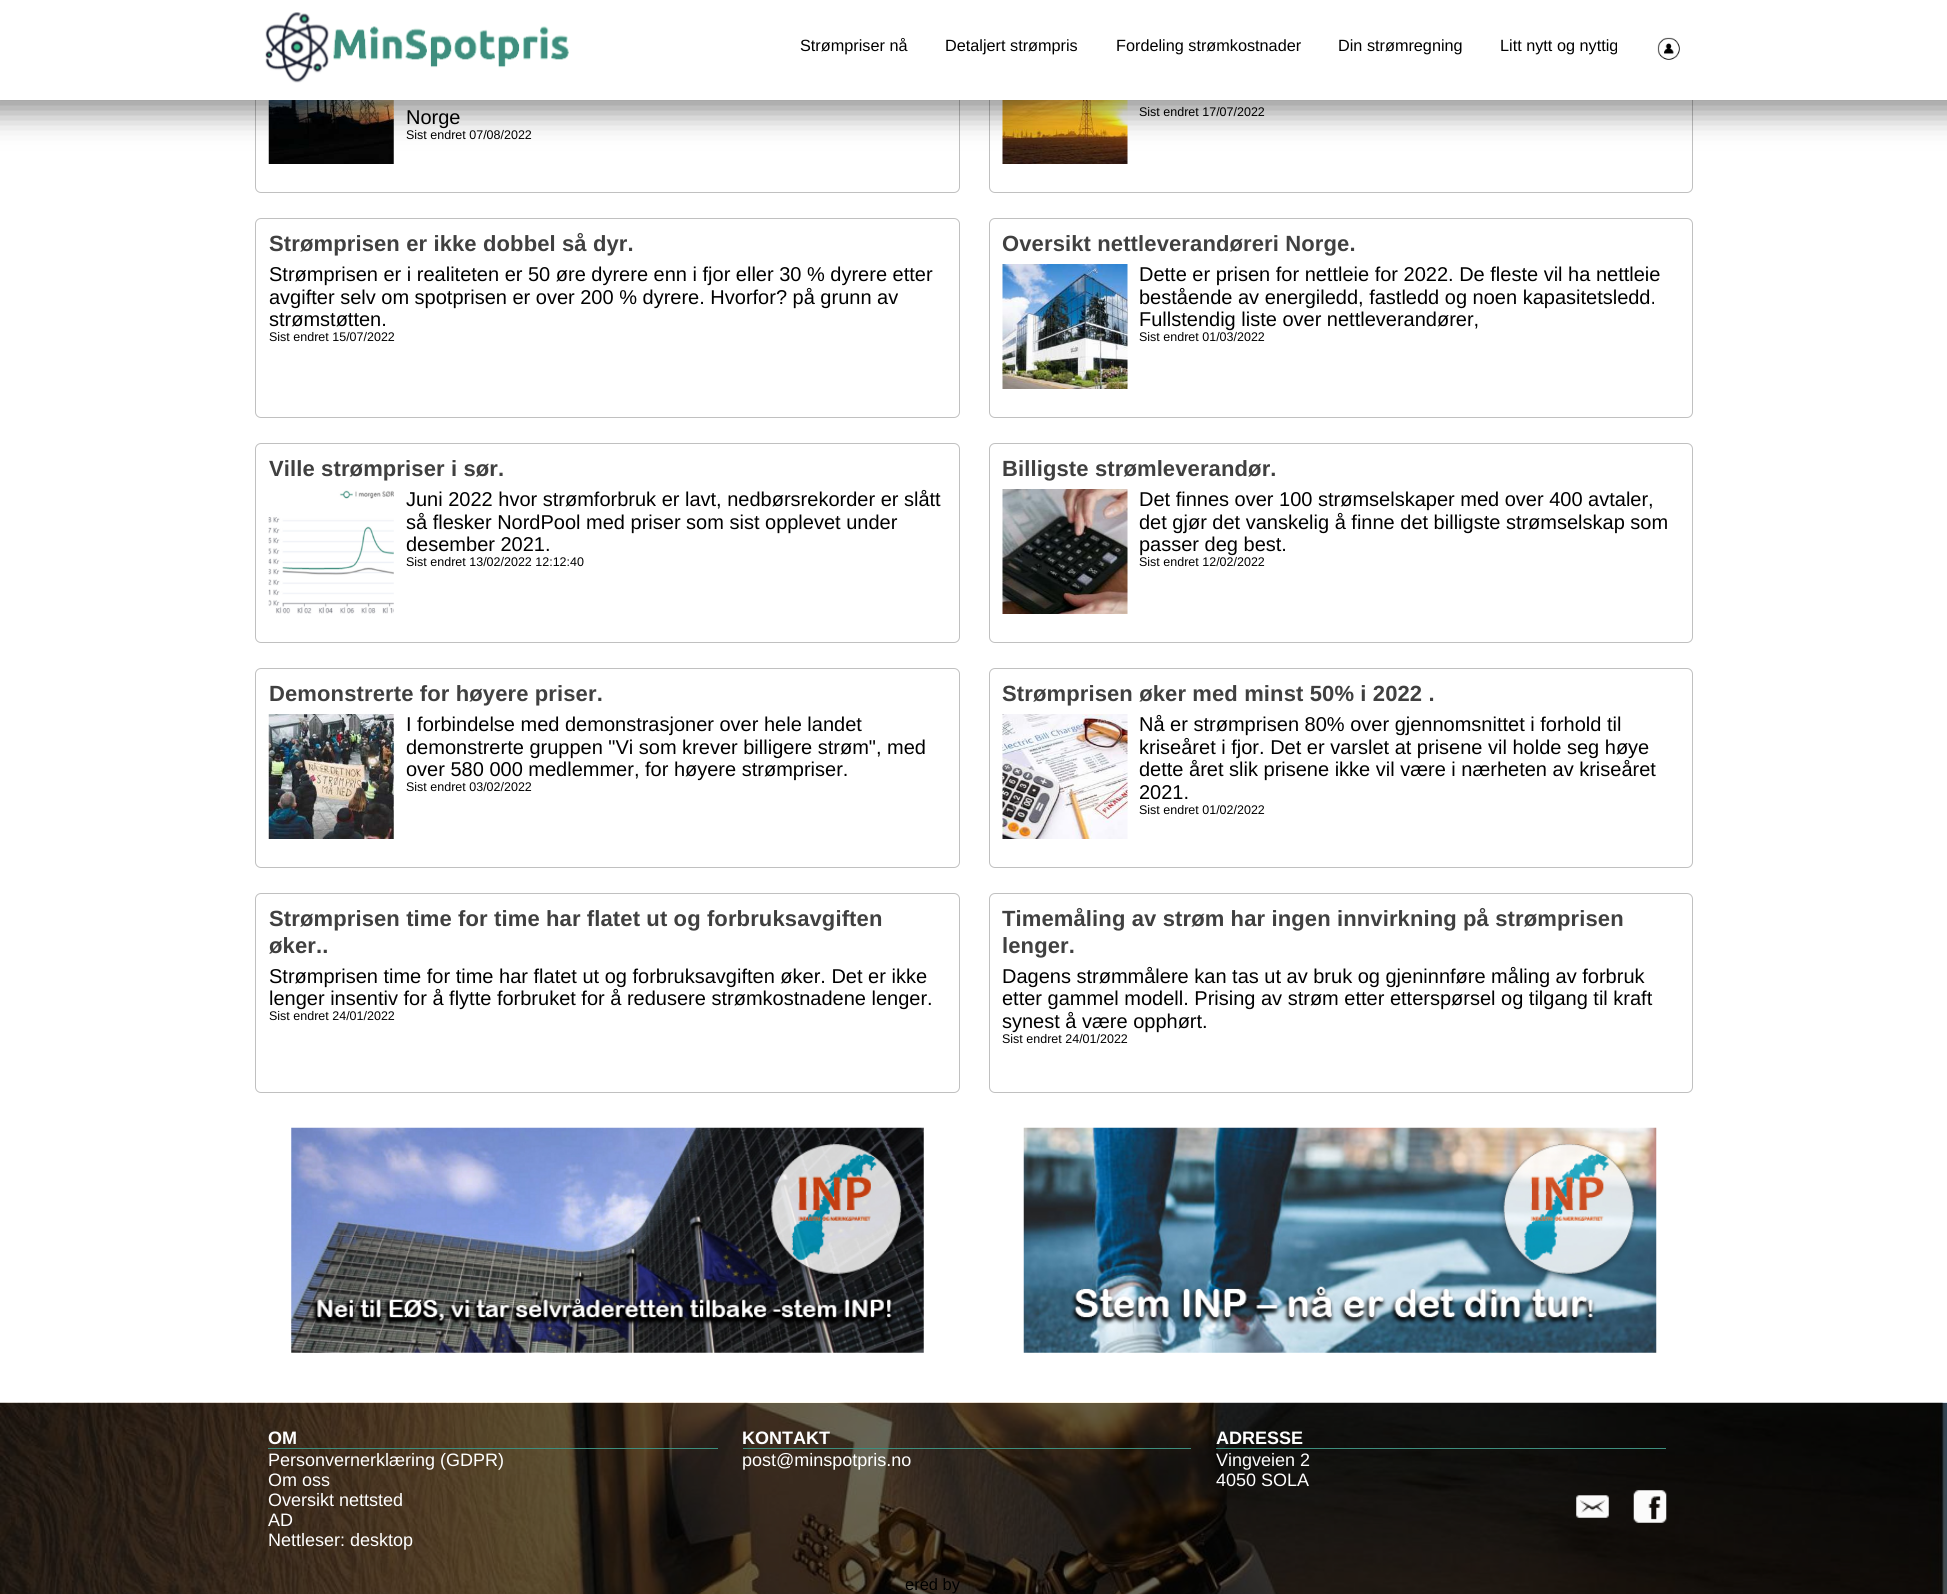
import math
import cairo



def draw_spaced(context, x, y, s, letter, word):
    context.move_to(x, y)
    for ch in s:
        context.show_text(ch)
        context.rel_move_to(letter + word * (ch == ' '), 0)


def rounded_rect(context, x, y, w, h, r):
    context.new_sub_path()
    for i, (u, v) in enumerate([(x + w - r, y + h - r), (x + r, y + h - r), (x + r, y + r), (x + w - r, y + r)]):
        context.arc(u, v, r, i * math.pi / 2, (i + 1) * math.pi / 2)
    context.close_path()


def draw_shadow(context, x, y, w, h, r, blur, alpha):
    context.push_group_with_content(cairo.Content.ALPHA)
    context.set_operator(cairo.Operator.SOURCE)
    for i in range(15, -16, -2):
        e = blur * i / 6
        if min(w, h) + 2 * e > 0:
            context.set_source_rgba(0, 0, 0, alpha * math.erfc((i - 1) / 8.5) / 2)
            rounded_rect(context, x - e, y - e, w + 2 * e, h + 2 * e, max(0, min(r + e + blur * .6, min(w, h) / 2 + e)))
            context.fill()
    context.mask(context.pop_group())


def draw_image(context, path, x, y, w, h):
    context.save()
    context.set_source_surface(cairo.ImageSurface.create_from_png(path), x, y)
    context.rectangle(x, y, w, h)
    context.fill()
    context.restore()


def draw(context):
    context.set_source_rgb(1, 1, 1)
    context.paint()
    rounded_rect(context, 255.5, -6.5, 704, 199, 5.5)
    context.set_source_rgb(192 / 255, 192 / 255, 192 / 255)
    context.set_line_width(1)
    context.stroke()
    draw_image(context, "images/3.png", 268, 100, 126, 64)
    rounded_rect(context, 989.5, -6.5, 703, 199, 5.5)
    context.stroke()
    draw_image(context, "images/4.png", 1002, 100, 126, 64)
    context.set_source_rgb(0, 0, 0)
    draw_shadow(context, -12, -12, 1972, 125, 0, 15, 0.42)
    context.set_source_rgb(1, 1, 1)
    context.rectangle(0, 0, 1947, 100)
    context.fill()
    draw_image(context, "images/1.png", 265, 12, 304, 71)
    draw_image(context, "images/2.png", 1657, 37, 23, 23)
    rounded_rect(context, 255.5, 218.5, 704, 199, 5.5)
    context.set_source_rgb(192 / 255, 192 / 255, 192 / 255)
    context.stroke()
    rounded_rect(context, 989.5, 218.5, 703, 199, 5.5)
    context.stroke()
    draw_image(context, "images/5.png", 1002, 264, 126, 125)
    rounded_rect(context, 255.5, 443.5, 704, 199, 5.5)
    context.stroke()
    draw_image(context, "images/6.png", 268, 490, 126, 124)
    rounded_rect(context, 989.5, 443.5, 703, 199, 5.5)
    context.stroke()
    draw_image(context, "images/7.png", 1002, 489, 126, 125)
    rounded_rect(context, 255.5, 668.5, 704, 199, 5.5)
    context.stroke()
    draw_image(context, "images/8.png", 268, 714, 126, 125)
    rounded_rect(context, 989.5, 668.5, 703, 199, 5.5)
    context.stroke()
    draw_image(context, "images/9.png", 1002, 714, 126, 125)
    rounded_rect(context, 255.5, 893.5, 704, 199, 5.5)
    context.stroke()
    rounded_rect(context, 989.5, 893.5, 703, 199, 5.5)
    context.stroke()
    draw_image(context, "images/10.png", 291, 1127, 633, 226)
    draw_image(context, "images/11.png", 1023, 1127, 634, 226)
    draw_image(context, "images/12.png", 0, 1402, 1947, 192)
    context.set_source_rgb(62 / 255, 142 / 255, 126 / 255)
    context.rectangle(268, 1448, 450, 1)
    context.fill()
    context.rectangle(743, 1448, 448, 1)
    context.fill()
    context.rectangle(1216, 1448, 450, 1)
    context.fill()
    draw_image(context, "images/13.png", 1576, 1495, 33, 23)
    draw_image(context, "images/14.png", 1633, 1490, 34, 33)
    context.select_font_face("Liberation Sans")
    context.set_font_size(16.25)
    context.set_source_rgb(0, 0, 0)
    context.move_to(800, 51)
    context.show_text("Strømpriser nå")
    context.move_to(945, 51)
    context.show_text("Detaljert strømpris")
    context.move_to(1116, 51)
    context.show_text("Fordeling strømkostnader")
    context.move_to(1338, 51)
    context.show_text("Din strømregning")
    context.move_to(1500, 51)
    context.show_text("Litt nytt og nyttig")
    context.set_font_size(20)
    context.move_to(406, 124)
    context.show_text("Norge")
    context.set_font_size(12.5)
    context.move_to(406, 139)
    context.show_text("Sist endret 07/08/2022")
    context.move_to(1139, 116)
    context.show_text("Sist endret 17/07/2022")
    context.select_font_face("Liberation Sans", cairo.FontSlant.NORMAL, cairo.FontWeight.BOLD)
    context.set_font_size(22)
    context.set_source_rgb(64 / 255, 64 / 255, 64 / 255)
    draw_spaced(context, 269, 251, "Strømprisen er ikke dobbel så dyr.", 0.12, 0)
    context.select_font_face("Liberation Sans")
    context.set_font_size(20)
    context.set_source_rgb(0, 0, 0)
    context.move_to(269, 281)
    context.show_text("Strømprisen er i realiteten er 50 øre dyrere enn i fjor eller 30 % dyrere etter")
    context.move_to(269, 304)
    context.show_text("avgifter selv om spotprisen er over 200 % dyrere. Hvorfor? på grunn av")
    context.move_to(269, 326)
    context.show_text("strømstøtten.")
    context.set_font_size(12.5)
    context.move_to(269, 341)
    context.show_text("Sist endret 15/07/2022")
    context.select_font_face("Liberation Sans", cairo.FontSlant.NORMAL, cairo.FontWeight.BOLD)
    context.set_font_size(22)
    context.set_source_rgb(64 / 255, 64 / 255, 64 / 255)
    draw_spaced(context, 1002, 251, "Oversikt nettleverandøreri Norge.", 0.12, 0)
    context.select_font_face("Liberation Sans")
    context.set_font_size(20)
    context.set_source_rgb(0, 0, 0)
    context.move_to(1139, 281)
    context.show_text("Dette er prisen for nettleie for 2022. De fleste vil ha nettleie")
    context.move_to(1139, 304)
    context.show_text("bestående av energiledd, fastledd og noen kapasitetsledd.")
    context.move_to(1139, 326)
    context.show_text("Fullstendig liste over nettleverandører,")
    context.set_font_size(12.5)
    context.move_to(1139, 341)
    context.show_text("Sist endret 01/03/2022")
    context.select_font_face("Liberation Sans", cairo.FontSlant.NORMAL, cairo.FontWeight.BOLD)
    context.set_font_size(22)
    context.set_source_rgb(64 / 255, 64 / 255, 64 / 255)
    draw_spaced(context, 269, 476, "Ville strømpriser i sør.", 0.12, 0)
    context.select_font_face("Liberation Sans")
    context.set_font_size(20)
    context.set_source_rgb(0, 0, 0)
    context.move_to(406, 506)
    context.show_text("Juni 2022 hvor strømforbruk er lavt, nedbørsrekorder er slått")
    context.move_to(406, 529)
    context.show_text("så flesker NordPool med priser som sist opplevet under")
    context.move_to(406, 551)
    context.show_text("desember 2021.")
    context.set_font_size(12.5)
    context.move_to(406, 566)
    context.show_text("Sist endret 13/02/2022 12:12:40")
    context.select_font_face("Liberation Sans", cairo.FontSlant.NORMAL, cairo.FontWeight.BOLD)
    context.set_font_size(22)
    context.set_source_rgb(64 / 255, 64 / 255, 64 / 255)
    draw_spaced(context, 1002, 476, "Billigste strømleverandør.", 0.12, 0)
    context.select_font_face("Liberation Sans")
    context.set_font_size(20)
    context.set_source_rgb(0, 0, 0)
    context.move_to(1139, 506)
    context.show_text("Det finnes over 100 strømselskaper med over 400 avtaler,")
    context.move_to(1139, 529)
    context.show_text("det gjør det vanskelig å finne det billigste strømselskap som")
    context.move_to(1139, 551)
    context.show_text("passer deg best.")
    context.set_font_size(12.5)
    context.move_to(1139, 566)
    context.show_text("Sist endret 12/02/2022")
    context.select_font_face("Liberation Sans", cairo.FontSlant.NORMAL, cairo.FontWeight.BOLD)
    context.set_font_size(22)
    context.set_source_rgb(64 / 255, 64 / 255, 64 / 255)
    draw_spaced(context, 269, 701, "Demonstrerte for høyere priser.", 0.12, 0)
    context.select_font_face("Liberation Sans")
    context.set_font_size(20)
    context.set_source_rgb(0, 0, 0)
    context.move_to(406, 731)
    context.show_text("I forbindelse med demonstrasjoner over hele landet")
    context.move_to(406, 754)
    context.show_text("demonstrerte gruppen \"Vi som krever billigere strøm\", med")
    context.move_to(406, 776)
    context.show_text("over 580 000 medlemmer, for høyere strømpriser.")
    context.set_font_size(12.5)
    context.move_to(406, 791)
    context.show_text("Sist endret 03/02/2022")
    context.select_font_face("Liberation Sans", cairo.FontSlant.NORMAL, cairo.FontWeight.BOLD)
    context.set_font_size(22)
    context.set_source_rgb(64 / 255, 64 / 255, 64 / 255)
    draw_spaced(context, 1002, 701, "Strømprisen øker med minst 50% i 2022 .", 0.12, 0)
    context.select_font_face("Liberation Sans")
    context.set_font_size(20)
    context.set_source_rgb(0, 0, 0)
    context.move_to(1139, 731)
    context.show_text("Nå er strømprisen 80% over gjennomsnittet i forhold til")
    context.move_to(1139, 754)
    context.show_text("kriseåret i fjor. Det er varslet at prisene vil holde seg høye")
    context.move_to(1139, 776)
    context.show_text("dette året slik prisene ikke vil være i nærheten av kriseåret")
    context.move_to(1139, 799)
    context.show_text("2021.")
    context.set_font_size(12.5)
    context.move_to(1139, 814)
    context.show_text("Sist endret 01/02/2022")
    context.select_font_face("Liberation Sans", cairo.FontSlant.NORMAL, cairo.FontWeight.BOLD)
    context.set_font_size(22)
    context.set_source_rgb(64 / 255, 64 / 255, 64 / 255)
    draw_spaced(context, 269, 926, "Strømprisen time for time har flatet ut og forbruksavgiften", 0.12, 0)
    draw_spaced(context, 269, 953, "øker..", 0.12, 0)
    context.select_font_face("Liberation Sans")
    context.set_font_size(20)
    context.set_source_rgb(0, 0, 0)
    context.move_to(269, 983)
    context.show_text("Strømprisen time for time har flatet ut og forbruksavgiften øker. Det er ikke")
    context.move_to(269, 1005)
    context.show_text("lenger insentiv for å flytte forbruket for å redusere strømkostnadene lenger.")
    context.set_font_size(12.5)
    context.move_to(269, 1020)
    context.show_text("Sist endret 24/01/2022")
    context.select_font_face("Liberation Sans", cairo.FontSlant.NORMAL, cairo.FontWeight.BOLD)
    context.set_font_size(22)
    context.set_source_rgb(64 / 255, 64 / 255, 64 / 255)
    draw_spaced(context, 1002, 926, "Timemåling av strøm har ingen innvirkning på strømprisen", 0.12, 0)
    draw_spaced(context, 1002, 953, "lenger.", 0.12, 0)
    context.select_font_face("Liberation Sans")
    context.set_font_size(20)
    context.set_source_rgb(0, 0, 0)
    context.move_to(1002, 983)
    context.show_text("Dagens strømmålere kan tas ut av bruk og gjeninnføre måling av forbruk")
    context.move_to(1002, 1005)
    context.show_text("etter gammel modell. Prising av strøm etter etterspørsel og tilgang til kraft")
    context.move_to(1002, 1028)
    context.show_text("synest å være opphørt.")
    context.set_font_size(12.5)
    context.move_to(1002, 1043)
    context.show_text("Sist endret 24/01/2022")
    context.select_font_face("Liberation Sans", cairo.FontSlant.NORMAL, cairo.FontWeight.BOLD)
    context.set_font_size(18)
    context.set_source_rgb(1, 1, 1)
    context.move_to(268, 1444)
    context.show_text("OM")
    context.select_font_face("Liberation Sans")
    context.move_to(268, 1466)
    context.show_text("Personvernerklæring (GDPR)")
    context.move_to(268, 1486)
    context.show_text("Om oss")
    context.move_to(268, 1506)
    context.show_text("Oversikt nettsted")
    context.move_to(268, 1526)
    context.show_text("AD")
    context.move_to(268, 1546)
    context.show_text("Nettleser: desktop")
    context.select_font_face("Liberation Sans", cairo.FontSlant.NORMAL, cairo.FontWeight.BOLD)
    context.move_to(742, 1444)
    context.show_text("KONTAKT")
    context.select_font_face("Liberation Sans")
    context.move_to(742, 1466)
    context.show_text("post@minspotpris.no")
    context.select_font_face("Liberation Sans", cairo.FontSlant.NORMAL, cairo.FontWeight.BOLD)
    context.move_to(1216, 1444)
    context.show_text("ADRESSE")
    context.select_font_face("Liberation Sans")
    context.move_to(1216, 1466)
    context.show_text("Vingveien 2")
    context.move_to(1216, 1486)
    context.show_text("4050 SOLA")
    context.set_font_size(16.5)
    context.set_source_rgb(0, 0, 0)
    context.move_to(905, 1590)
    context.show_text("ered by")


surface = cairo.ImageSurface(cairo.Format.RGB24, 1947, 1594)
context = cairo.Context(surface)
options = cairo.FontOptions()
options.set_hint_metrics(cairo.HintMetrics.OFF)
options.set_hint_style(cairo.HintStyle.NONE)
context.set_font_options(options)
context.set_miter_limit(4)
draw(context)
surface.write_to_png("out.png")
